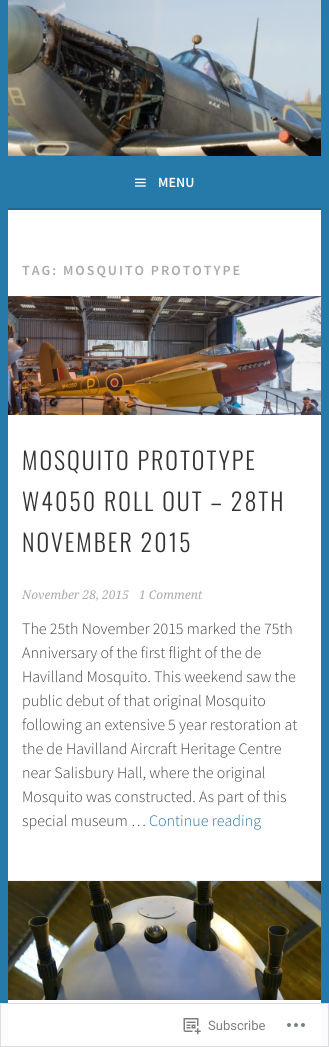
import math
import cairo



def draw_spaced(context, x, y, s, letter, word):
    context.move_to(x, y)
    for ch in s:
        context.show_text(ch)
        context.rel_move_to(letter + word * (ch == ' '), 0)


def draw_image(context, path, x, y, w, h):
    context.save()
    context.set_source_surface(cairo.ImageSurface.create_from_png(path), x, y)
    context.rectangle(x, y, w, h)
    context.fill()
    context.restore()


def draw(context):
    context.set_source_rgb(38 / 255, 122 / 255, 170 / 255)
    context.paint()
    context.set_source_rgb(251 / 255, 252 / 255, 253 / 255)
    context.rectangle(0, 1003, 329, 44)
    context.fill()
    draw_image(context, "images/1.png", 8, 0, 313, 156)
    context.set_source_rgb(32 / 255, 104 / 255, 145 / 255)
    context.rectangle(8, 208, 313, 2)
    context.fill()
    draw_image(context, "images/2.png", 135, 178, 11, 9)
    context.set_source_rgb(1, 1, 1)
    context.rectangle(8, 210, 313, 837)
    context.fill()
    draw_image(context, "images/3.png", 8, 296, 313, 119)
    context.set_source_rgb(242 / 255, 242 / 255, 242 / 255)
    context.rectangle(8, 880, 313, 1)
    context.fill()
    draw_image(context, "images/4.png", 8, 881, 313, 119)
    context.rectangle(0.5, 1003.5, 328, 43)
    context.set_source_rgba(220 / 255, 220 / 255, 222 / 255, 0.98)
    context.set_line_width(1)
    context.stroke()
    draw_image(context, "images/5.png", 183, 1018, 18, 17)
    draw_image(context, "images/6.png", 287, 1023, 18, 4)
    context.select_font_face("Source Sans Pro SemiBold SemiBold")
    context.set_font_size(14)
    context.set_source_rgb(1, 1, 1)
    context.move_to(158, 187)
    context.show_text("MENU")
    context.set_source_rgb(170 / 255, 170 / 255, 170 / 255)
    draw_spaced(context, 22, 275, "TAG: MOSQUITO PROTOTYPE", 2, 0)
    context.select_font_face("Oswald Light")
    context.set_font_size(24)
    context.set_source_rgb(51 / 255, 51 / 255, 51 / 255)
    draw_spaced(context, 22, 470, "MOSQUITO PROTOTYPE", 2, 0)
    draw_spaced(context, 22, 511, "W4050 ROLL OUT – 28TH", 2, 0)
    draw_spaced(context, 22, 552, "NOVEMBER 2015", 2, 0)
    context.select_font_face("Droid Serif", cairo.FontSlant.ITALIC)
    context.set_font_size(12)
    context.set_source_rgb(170 / 255, 170 / 255, 170 / 255)
    context.move_to(22, 599)
    context.show_text("November 28, 2015")
    context.move_to(139, 599)
    context.show_text("1 Comment")
    context.select_font_face("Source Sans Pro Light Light")
    context.set_font_size(16)
    context.set_source_rgb(64 / 255, 64 / 255, 64 / 255)
    context.move_to(22, 634)
    context.show_text("The 25th November 2015 marked the 75th")
    context.move_to(22, 658)
    context.show_text("Anniversary of the first flight of the de")
    context.move_to(22, 682)
    context.show_text("Havilland Mosquito. This weekend saw the")
    context.move_to(22, 706)
    context.show_text("public debut of that original Mosquito")
    context.move_to(22, 730)
    context.show_text("following an extensive 5 year restoration at")
    context.move_to(22, 754)
    context.show_text("the de Havilland Aircraft Heritage Centre")
    context.move_to(22, 778)
    context.show_text("near Salisbury Hall, where the original")
    context.move_to(22, 802)
    context.show_text("Mosquito was constructed. As part of this")
    context.move_to(22, 826)
    context.show_text("special museum …")
    context.set_source_rgb(35 / 255, 116 / 255, 163 / 255)
    context.move_to(149, 826)
    context.show_text("Continue reading")
    context.select_font_face("Roboto")
    context.set_font_size(13)
    context.set_source_rgb(123 / 255, 127 / 255, 133 / 255)
    context.move_to(208, 1030)
    context.show_text("Subscribe")


surface = cairo.ImageSurface(cairo.Format.RGB24, 329, 1047)
context = cairo.Context(surface)
options = cairo.FontOptions()
options.set_hint_metrics(cairo.HintMetrics.OFF)
options.set_hint_style(cairo.HintStyle.NONE)
context.set_font_options(options)
context.set_miter_limit(4)
draw(context)
surface.write_to_png("out.png")
